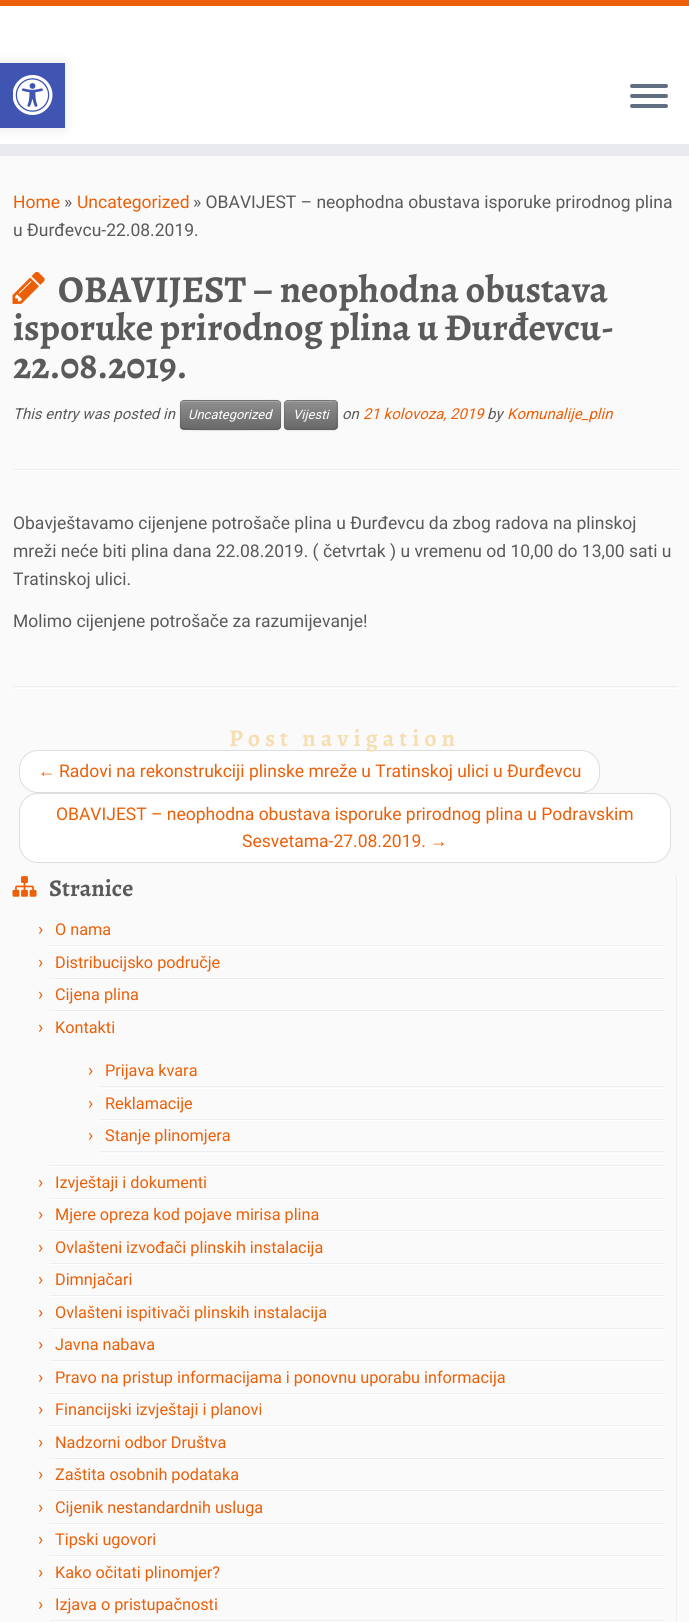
import math
import cairo



def draw_spaced(context, x, y, s, letter, word):
    context.move_to(x, y)
    for ch in s:
        context.show_text(ch)
        context.rel_move_to(letter + word * (ch == ' '), 0)


def rounded_rect(context, x, y, w, h, r):
    context.new_sub_path()
    for i, (u, v) in enumerate([(x + w - r, y + h - r), (x + r, y + h - r), (x + r, y + r), (x + w - r, y + r)]):
        context.arc(u, v, r, i * math.pi / 2, (i + 1) * math.pi / 2)
    context.close_path()


def draw_shadow(context, x, y, w, h, r, blur, alpha):
    context.push_group_with_content(cairo.Content.ALPHA)
    context.set_operator(cairo.Operator.SOURCE)
    for i in range(15, -16, -2):
        e = blur * i / 6
        if min(w, h) + 2 * e > 0:
            context.set_source_rgba(0, 0, 0, alpha * math.erfc((i - 1) / 8.5) / 2)
            rounded_rect(context, x - e, y - e, w + 2 * e, h + 2 * e, max(0, min(r + e + blur * .6, min(w, h) / 2 + e)))
            context.fill()
    context.mask(context.pop_group())


def draw_image(context, path, x, y, w, h):
    context.save()
    context.set_source_surface(cairo.ImageSurface.create_from_png(path), x, y)
    context.rectangle(x, y, w, h)
    context.fill()
    context.restore()


def draw(context):
    context.set_source_rgb(250 / 255, 250 / 255, 250 / 255)
    context.paint()
    context.set_source_rgb(1, 1, 1)
    context.rectangle(0, 6, 689, 138)
    context.fill()
    context.set_source_rgb(233 / 255, 234 / 255, 238 / 255)
    context.rectangle(0, 144, 689, 12)
    context.fill()
    context.set_source_rgb(0, 0, 0)
    draw_shadow(context, 0, 63, 65, 65, 0, 6, 0.1)
    context.set_source_rgb(64 / 255, 84 / 255, 178 / 255)
    context.rectangle(0, 63, 65, 65)
    context.fill()
    draw_image(context, "images/1.png", 13, 75, 40, 40)
    context.set_source_rgb(237 / 255, 95 / 255, 7 / 255)
    context.rectangle(0, 0, 689, 6)
    context.fill()
    context.set_source_rgb(95 / 255, 111 / 255, 129 / 255)
    rounded_rect(context, 630, 84, 38, 4, 2)
    context.fill()
    rounded_rect(context, 630, 94, 38, 4, 2)
    context.fill()
    rounded_rect(context, 630, 104, 38, 4, 2)
    context.fill()
    draw_image(context, "images/2.png", 12, 271, 33, 33)
    context.set_source_rgb(0, 0, 0)
    draw_shadow(context, 180, 401, 101, 30, 4, 1, 0.05)
    context.set_source_rgb(128 / 255, 128 / 255, 128 / 255)
    rounded_rect(context, 180, 400, 101, 30, 4)
    context.fill()
    context.save()
    rounded_rect(context, 180, 400, 101, 30, 4)
    context.clip()
    gradient = cairo.LinearGradient(231, 401, 231, 429)
    gradient.add_color_stop_rgba(0, 143 / 255, 143 / 255, 143 / 255, 1)
    gradient.add_color_stop_rgba(1, 105 / 255, 105 / 255, 105 / 255, 1)
    context.set_source(gradient)
    context.rectangle(180, 401, 101, 28)
    context.fill()
    context.restore()
    context.set_source_rgb(165 / 255, 165 / 255, 165 / 255)
    context.new_path()
    context.move_to(184, 402)
    context.line_to(278, 402)
    context.curve_to(279, 402, 280, 404, 280, 405)
    context.line_to(280, 404)
    context.curve_to(280, 402, 279, 401, 278, 401)
    context.line_to(184, 401)
    context.curve_to(182, 401, 181, 402, 181, 404)
    context.line_to(181, 405)
    context.curve_to(181, 404, 182, 402, 184, 402)
    context.close_path()
    context.fill()
    context.new_path()
    context.move_to(279.5, 428.5)
    context.line_to(277.5, 429.5)
    context.line_to(262, 429.5)
    context.curve_to(253.5, 429.5, 184, 430.5, 182, 428.5)
    context.line_to(181.5, 428.5)
    context.set_source_rgba(0, 0, 0, 0.25)
    context.set_line_width(1.2)
    context.stroke()
    context.new_path()
    context.move_to(181.5, 428.5)
    context.curve_to(179.5, 426, 180.5, 421.5, 180.5, 419)
    context.curve_to(180.5, 397, 176.5, 400.5, 199.5, 400.5)
    context.line_to(262, 400.5)
    context.curve_to(284.5, 400.5, 280.5, 397, 280.5, 419)
    context.curve_to(280.5, 421.5, 282, 426, 279.5, 428.5)
    context.set_source_rgba(0, 0, 0, 0.1)
    context.stroke()
    context.set_source_rgb(0, 0, 0)
    draw_shadow(context, 284, 401, 54, 30, 4, 1, 0.05)
    context.set_source_rgb(128 / 255, 128 / 255, 128 / 255)
    rounded_rect(context, 284, 400, 54, 30, 4)
    context.fill()
    context.save()
    rounded_rect(context, 284, 400, 54, 30, 4)
    context.clip()
    gradient = cairo.LinearGradient(311, 401, 311, 429)
    gradient.add_color_stop_rgba(0, 143 / 255, 143 / 255, 143 / 255, 1)
    gradient.add_color_stop_rgba(1, 105 / 255, 105 / 255, 105 / 255, 1)
    context.set_source(gradient)
    context.rectangle(284, 401, 54, 28)
    context.fill()
    context.restore()
    context.set_source_rgb(165 / 255, 165 / 255, 165 / 255)
    context.new_path()
    context.move_to(288, 402)
    context.line_to(334, 402)
    context.curve_to(335, 402, 336, 404, 336, 405)
    context.curve_to(336, 399, 331, 401, 326, 401)
    context.line_to(295, 401)
    context.curve_to(290, 401, 285, 399, 285, 405)
    context.curve_to(285, 404, 286, 402, 288, 402)
    context.close_path()
    context.fill()
    context.new_path()
    context.move_to(336, 428.5)
    context.line_to(334, 429.5)
    context.line_to(287, 429.5)
    context.line_to(285.5, 428.5)
    context.set_source_rgba(0, 0, 0, 0.25)
    context.stroke()
    context.new_path()
    context.move_to(285.5, 428.5)
    context.curve_to(283, 426.5, 284.5, 417.5, 284.5, 415)
    context.curve_to(284.5, 400.5, 281.5, 400.5, 295, 400.5)
    context.line_to(326, 400.5)
    context.curve_to(340, 400.5, 337, 400.5, 337, 415)
    context.curve_to(337, 417.5, 338, 426.5, 336, 428.5)
    context.set_source_rgba(0, 0, 0, 0.1)
    context.stroke()
    context.set_source_rgb(238 / 255, 238 / 255, 238 / 255)
    context.rectangle(13, 469, 665, 1)
    context.fill()
    context.set_source_rgb(1, 1, 1)
    context.rectangle(13, 470, 665, 1)
    context.fill()
    context.set_source_rgb(238 / 255, 238 / 255, 238 / 255)
    context.rectangle(13, 686, 665, 1)
    context.fill()
    context.set_source_rgb(1, 1, 1)
    context.rectangle(13, 688, 665, 1)
    context.fill()
    rounded_rect(context, 19.5, 750.5, 580, 42, 18.5)
    context.fill_preserve()
    context.set_source_rgb(221 / 255, 221 / 255, 221 / 255)
    context.set_line_width(1)
    context.stroke()
    context.set_source_rgb(1, 1, 1)
    rounded_rect(context, 19.5, 793.5, 651, 69, 18.5)
    context.fill_preserve()
    context.set_source_rgb(221 / 255, 221 / 255, 221 / 255)
    context.stroke()
    context.set_source_rgb(238 / 255, 238 / 255, 238 / 255)
    context.rectangle(676, 876, 1, 746)
    context.fill()
    draw_image(context, "images/3.png", 12, 876, 25, 21)
    context.rectangle(50, 945, 614, 1)
    context.fill()
    context.set_source_rgb(1, 1, 1)
    context.rectangle(50, 946, 614, 1)
    context.fill()
    context.set_source_rgb(238 / 255, 238 / 255, 238 / 255)
    context.rectangle(50, 978, 614, 1)
    context.fill()
    context.set_source_rgb(1, 1, 1)
    context.rectangle(50, 979, 614, 1)
    context.fill()
    context.set_source_rgb(238 / 255, 238 / 255, 238 / 255)
    context.rectangle(50, 1010, 614, 1)
    context.fill()
    context.set_source_rgb(1, 1, 1)
    context.rectangle(50, 1011, 614, 1)
    context.fill()
    context.set_source_rgb(238 / 255, 238 / 255, 238 / 255)
    context.rectangle(50, 1165, 614, 1)
    context.fill()
    context.rectangle(100, 1086, 564, 1)
    context.fill()
    context.set_source_rgb(1, 1, 1)
    context.rectangle(100, 1088, 564, 1)
    context.fill()
    context.set_source_rgb(238 / 255, 238 / 255, 238 / 255)
    context.rectangle(100, 1119, 564, 1)
    context.fill()
    context.set_source_rgb(1, 1, 1)
    context.rectangle(100, 1120, 564, 1)
    context.fill()
    context.set_source_rgb(238 / 255, 238 / 255, 238 / 255)
    context.rectangle(100, 1151, 564, 1)
    context.fill()
    context.set_source_rgb(1, 1, 1)
    context.rectangle(100, 1153, 564, 1)
    context.fill()
    context.rectangle(50, 1166, 614, 1)
    context.fill()
    context.set_source_rgb(238 / 255, 238 / 255, 238 / 255)
    context.rectangle(50, 1198, 614, 1)
    context.fill()
    context.set_source_rgb(1, 1, 1)
    context.rectangle(50, 1199, 614, 1)
    context.fill()
    context.set_source_rgb(238 / 255, 238 / 255, 238 / 255)
    context.rectangle(50, 1230, 614, 1)
    context.fill()
    context.set_source_rgb(1, 1, 1)
    context.rectangle(50, 1231, 614, 1)
    context.fill()
    context.set_source_rgb(238 / 255, 238 / 255, 238 / 255)
    context.rectangle(50, 1263, 614, 1)
    context.fill()
    context.set_source_rgb(1, 1, 1)
    context.rectangle(50, 1264, 614, 1)
    context.fill()
    context.set_source_rgb(238 / 255, 238 / 255, 238 / 255)
    context.rectangle(50, 1295, 614, 1)
    context.fill()
    context.set_source_rgb(1, 1, 1)
    context.rectangle(50, 1296, 614, 1)
    context.fill()
    context.set_source_rgb(238 / 255, 238 / 255, 238 / 255)
    context.rectangle(50, 1328, 614, 1)
    context.fill()
    context.set_source_rgb(1, 1, 1)
    context.rectangle(50, 1329, 614, 1)
    context.fill()
    context.set_source_rgb(238 / 255, 238 / 255, 238 / 255)
    context.rectangle(50, 1360, 614, 1)
    context.fill()
    context.set_source_rgb(1, 1, 1)
    context.rectangle(50, 1361, 614, 1)
    context.fill()
    context.set_source_rgb(238 / 255, 238 / 255, 238 / 255)
    context.rectangle(50, 1393, 614, 1)
    context.fill()
    context.set_source_rgb(1, 1, 1)
    context.rectangle(50, 1394, 614, 1)
    context.fill()
    context.set_source_rgb(238 / 255, 238 / 255, 238 / 255)
    context.rectangle(50, 1425, 614, 1)
    context.fill()
    context.set_source_rgb(1, 1, 1)
    context.rectangle(50, 1426, 614, 1)
    context.fill()
    context.set_source_rgb(238 / 255, 238 / 255, 238 / 255)
    context.rectangle(50, 1458, 614, 1)
    context.fill()
    context.set_source_rgb(1, 1, 1)
    context.rectangle(50, 1459, 614, 1)
    context.fill()
    context.set_source_rgb(238 / 255, 238 / 255, 238 / 255)
    context.rectangle(50, 1490, 614, 1)
    context.fill()
    context.set_source_rgb(1, 1, 1)
    context.rectangle(50, 1491, 614, 1)
    context.fill()
    context.set_source_rgb(238 / 255, 238 / 255, 238 / 255)
    context.rectangle(50, 1523, 614, 1)
    context.fill()
    context.set_source_rgb(1, 1, 1)
    context.rectangle(50, 1524, 614, 1)
    context.fill()
    context.set_source_rgb(238 / 255, 238 / 255, 238 / 255)
    context.rectangle(50, 1555, 614, 1)
    context.fill()
    context.set_source_rgb(1, 1, 1)
    context.rectangle(50, 1556, 614, 1)
    context.fill()
    context.set_source_rgb(238 / 255, 238 / 255, 238 / 255)
    context.rectangle(50, 1588, 614, 1)
    context.fill()
    context.set_source_rgb(1, 1, 1)
    context.rectangle(50, 1589, 614, 1)
    context.fill()
    context.set_source_rgb(238 / 255, 238 / 255, 238 / 255)
    context.rectangle(50, 1620, 614, 1)
    context.fill()
    context.set_source_rgb(1, 1, 1)
    context.rectangle(50, 1621, 614, 1)
    context.fill()
    context.rectangle(678, 876, 1, 746)
    context.fill()
    context.select_font_face("Roboto")
    context.set_font_size(17.5)
    context.set_source_rgb(237 / 255, 95 / 255, 7 / 255)
    context.move_to(13, 208)
    context.show_text("Home")
    context.set_source_rgb(90 / 255, 90 / 255, 90 / 255)
    context.move_to(64, 208)
    context.show_text("»")
    context.set_source_rgb(237 / 255, 95 / 255, 7 / 255)
    context.move_to(77, 208)
    context.show_text("Uncategorized")
    context.set_source_rgb(90 / 255, 90 / 255, 90 / 255)
    context.move_to(193, 208)
    context.show_text("» OBAVIJEST – neophodna obustava isporuke prirodnog plina")
    context.move_to(13, 236)
    context.show_text("u Đurđevcu-22.08.2019.")
    context.select_font_face("Alegreya", cairo.FontSlant.NORMAL, cairo.FontWeight.BOLD)
    context.set_font_size(38)
    context.move_to(58, 302)
    context.show_text("OBAVIJEST – neophodna obustava")
    context.move_to(13, 340)
    context.show_text("isporuke prirodnog plina u Đurđevcu-")
    context.move_to(13, 378)
    context.show_text("22.08.2019.")
    context.select_font_face("Roboto", cairo.FontSlant.ITALIC)
    context.set_font_size(15)
    context.move_to(13, 419)
    context.show_text("This entry was posted in")
    context.set_font_size(13)
    context.set_source_rgb(1, 1, 1)
    context.move_to(188, 419)
    context.show_text("Uncategorized")
    context.move_to(293, 419)
    context.show_text("Vijesti")
    context.set_font_size(15)
    context.set_source_rgb(90 / 255, 90 / 255, 90 / 255)
    context.move_to(342, 419)
    context.show_text("on")
    context.set_source_rgb(237 / 255, 95 / 255, 7 / 255)
    context.move_to(363, 419)
    context.show_text("21 kolovoza, 2019")
    context.set_source_rgb(90 / 255, 90 / 255, 90 / 255)
    context.move_to(487, 419)
    context.show_text("by")
    context.set_source_rgb(237 / 255, 95 / 255, 7 / 255)
    context.move_to(507, 419)
    context.show_text("Komunalije_plin")
    context.select_font_face("Roboto")
    context.set_font_size(17.5)
    context.set_source_rgb(90 / 255, 90 / 255, 90 / 255)
    context.move_to(13, 529)
    context.show_text("Obavještavamo cijenjene potrošače plina u Đurđevcu da zbog radova na plinskoj")
    context.move_to(13, 557)
    context.show_text("mreži neće biti plina dana 22.08.2019. ( četvrtak ) u vremenu od 10,00 do 13,00 sati u")
    context.move_to(13, 585)
    context.show_text("Tratinskoj ulici.")
    context.move_to(13, 627)
    context.show_text("Molimo cijenjene potrošače za razumijevanje!")
    context.select_font_face("Alegreya", cairo.FontSlant.NORMAL, cairo.FontWeight.BOLD)
    context.set_font_size(24)
    context.set_source_rgb(245 / 255, 223 / 255, 178 / 255)
    draw_spaced(context, 229, 746, "Post navigation", 5, 0)
    context.select_font_face("Liberation Serif")
    context.set_font_size(17.5)
    context.set_source_rgb(237 / 255, 95 / 255, 7 / 255)
    context.move_to(38, 777)
    context.show_text("←")
    context.select_font_face("Roboto")
    context.move_to(59, 777)
    context.show_text("Radovi na rekonstrukciji plinske mreže u Tratinskoj ulici u Đurđevcu")
    context.move_to(56, 820)
    context.show_text("OBAVIJEST – neophodna obustava isporuke prirodnog plina u Podravskim")
    context.move_to(242, 847)
    context.show_text("Sesvetama-27.08.2019.")
    context.select_font_face("Liberation Serif")
    context.move_to(430, 847)
    context.show_text("→")
    context.select_font_face("Alegreya", cairo.FontSlant.NORMAL, cairo.FontWeight.BOLD)
    context.set_font_size(24)
    context.set_source_rgb(90 / 255, 90 / 255, 90 / 255)
    context.move_to(49, 896)
    context.show_text("Stranice")
    context.select_font_face("Roboto")
    context.set_font_size(17.5)
    context.set_source_rgb(237 / 255, 95 / 255, 7 / 255)
    context.move_to(38, 935)
    context.show_text("›")
    context.set_font_size(16.25)
    context.move_to(55, 935)
    context.show_text("O nama")
    context.set_font_size(17.5)
    context.move_to(38, 968)
    context.show_text("›")
    context.set_font_size(16.25)
    context.move_to(55, 968)
    context.show_text("Distribucijsko područje")
    context.set_font_size(17.5)
    context.move_to(38, 1000)
    context.show_text("›")
    context.set_font_size(16.25)
    context.move_to(55, 1000)
    context.show_text("Cijena plina")
    context.set_font_size(17.5)
    context.move_to(38, 1033)
    context.show_text("›")
    context.set_font_size(16.25)
    context.move_to(55, 1033)
    context.show_text("Kontakti")
    context.set_font_size(17.5)
    context.move_to(88, 1076)
    context.show_text("›")
    context.set_font_size(16.25)
    context.move_to(105, 1076)
    context.show_text("Prijava kvara")
    context.set_font_size(17.5)
    context.move_to(88, 1109)
    context.show_text("›")
    context.set_font_size(16.25)
    context.move_to(105, 1109)
    context.show_text("Reklamacije")
    context.set_font_size(17.5)
    context.move_to(88, 1141)
    context.show_text("›")
    context.set_font_size(16.25)
    context.move_to(105, 1141)
    context.show_text("Stanje plinomjera")
    context.set_font_size(17.5)
    context.move_to(38, 1188)
    context.show_text("›")
    context.set_font_size(16.25)
    context.move_to(55, 1188)
    context.show_text("Izvještaji i dokumenti")
    context.set_font_size(17.5)
    context.move_to(38, 1220)
    context.show_text("›")
    context.set_font_size(16.25)
    context.move_to(55, 1220)
    context.show_text("Mjere opreza kod pojave mirisa plina")
    context.set_font_size(17.5)
    context.move_to(38, 1253)
    context.show_text("›")
    context.set_font_size(16.25)
    context.move_to(55, 1253)
    context.show_text("Ovlašteni izvođači plinskih instalacija")
    context.set_font_size(17.5)
    context.move_to(38, 1285)
    context.show_text("›")
    context.set_font_size(16.25)
    context.move_to(55, 1285)
    context.show_text("Dimnjačari")
    context.set_font_size(17.5)
    context.move_to(38, 1318)
    context.show_text("›")
    context.set_font_size(16.25)
    context.move_to(55, 1318)
    context.show_text("Ovlašteni ispitivači plinskih instalacija")
    context.set_font_size(17.5)
    context.move_to(38, 1350)
    context.show_text("›")
    context.set_font_size(16.25)
    context.move_to(55, 1350)
    context.show_text("Javna nabava")
    context.set_font_size(17.5)
    context.move_to(38, 1383)
    context.show_text("›")
    context.set_font_size(16.25)
    context.move_to(55, 1383)
    context.show_text("Pravo na pristup informacijama i ponovnu uporabu informacija")
    context.set_font_size(17.5)
    context.move_to(38, 1415)
    context.show_text("›")
    context.set_font_size(16.25)
    context.move_to(55, 1415)
    context.show_text("Financijski izvještaji i planovi")
    context.set_font_size(17.5)
    context.move_to(38, 1448)
    context.show_text("›")
    context.set_font_size(16.25)
    context.move_to(55, 1448)
    context.show_text("Nadzorni odbor Društva")
    context.set_font_size(17.5)
    context.move_to(38, 1480)
    context.show_text("›")
    context.set_font_size(16.25)
    context.move_to(55, 1480)
    context.show_text("Zaštita osobnih podataka")
    context.set_font_size(17.5)
    context.move_to(38, 1513)
    context.show_text("›")
    context.set_font_size(16.25)
    context.move_to(55, 1513)
    context.show_text("Cijenik nestandardnih usluga")
    context.set_font_size(17.5)
    context.move_to(38, 1545)
    context.show_text("›")
    context.set_font_size(16.25)
    context.move_to(55, 1545)
    context.show_text("Tipski ugovori")
    context.set_font_size(17.5)
    context.move_to(38, 1578)
    context.show_text("›")
    context.set_font_size(16.25)
    context.move_to(55, 1578)
    context.show_text("Kako očitati plinomjer?")
    context.set_font_size(17.5)
    context.move_to(38, 1610)
    context.show_text("›")
    context.set_font_size(16.25)
    context.move_to(55, 1610)
    context.show_text("Izjava o pristupačnosti")


surface = cairo.ImageSurface(cairo.Format.RGB24, 689, 1622)
context = cairo.Context(surface)
options = cairo.FontOptions()
options.set_hint_metrics(cairo.HintMetrics.OFF)
options.set_hint_style(cairo.HintStyle.NONE)
context.set_font_options(options)
context.set_miter_limit(4)
draw(context)
surface.write_to_png("out.png")
